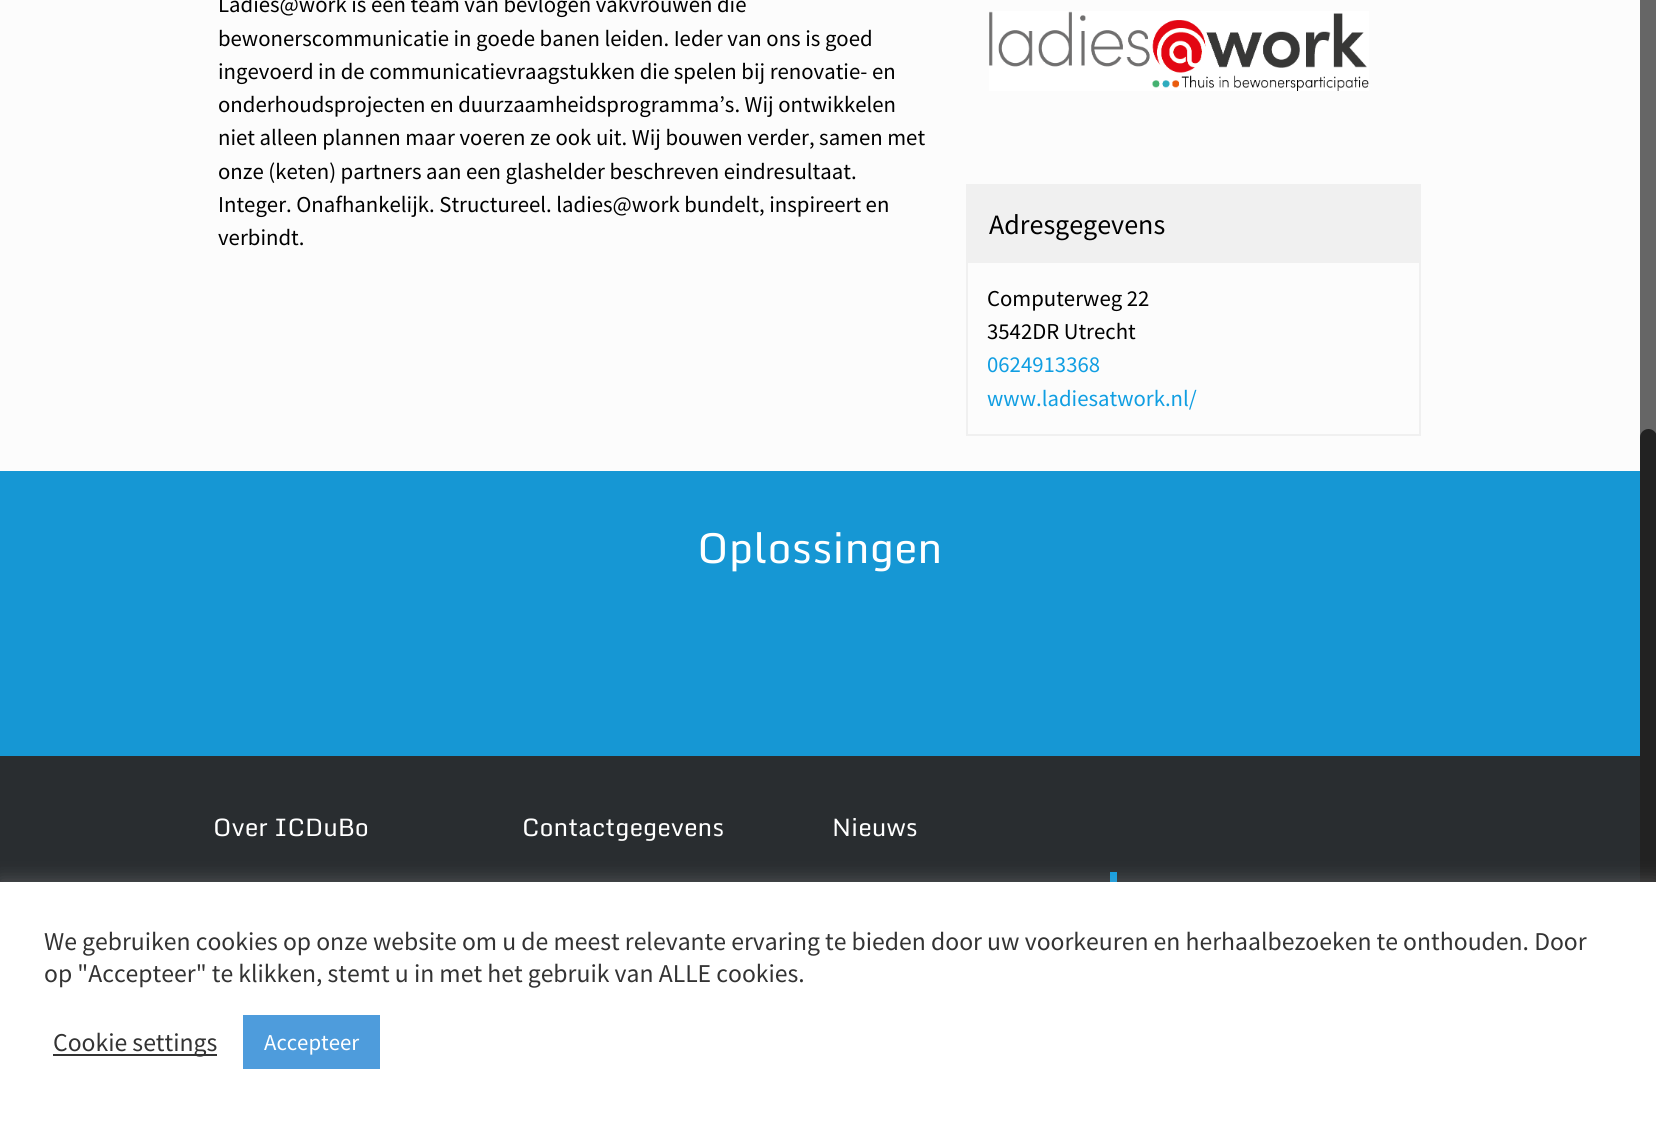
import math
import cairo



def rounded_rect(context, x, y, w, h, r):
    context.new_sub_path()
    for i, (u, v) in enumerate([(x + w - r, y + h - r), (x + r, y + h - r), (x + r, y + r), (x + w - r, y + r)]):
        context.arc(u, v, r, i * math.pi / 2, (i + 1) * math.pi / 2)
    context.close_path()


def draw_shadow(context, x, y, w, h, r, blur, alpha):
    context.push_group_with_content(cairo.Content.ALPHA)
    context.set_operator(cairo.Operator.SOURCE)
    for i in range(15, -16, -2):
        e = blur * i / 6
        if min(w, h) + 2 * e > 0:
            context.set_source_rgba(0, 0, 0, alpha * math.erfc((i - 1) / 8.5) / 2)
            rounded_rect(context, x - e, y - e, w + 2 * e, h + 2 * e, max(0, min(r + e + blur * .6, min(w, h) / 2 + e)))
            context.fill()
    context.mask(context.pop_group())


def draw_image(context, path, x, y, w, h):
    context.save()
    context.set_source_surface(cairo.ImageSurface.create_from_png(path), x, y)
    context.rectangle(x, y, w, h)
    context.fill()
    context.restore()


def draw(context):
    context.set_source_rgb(252 / 255, 252 / 255, 252 / 255)
    context.paint()
    draw_image(context, "images/1.png", 989, 11, 380, 80)
    context.rectangle(967, 185, 453, 250)
    context.set_source_rgb(240 / 255, 240 / 255, 240 / 255)
    context.stroke()
    context.rectangle(968, 186, 451, 77)
    context.fill()
    context.set_source_rgb(22 / 255, 151 / 255, 212 / 255)
    context.rectangle(0, 471, 1640, 285)
    context.fill()
    context.set_source_rgb(102 / 255, 102 / 255, 102 / 255)
    context.rectangle(1640, 0, 16, 438)
    context.fill()
    context.set_source_rgb(34 / 255, 34 / 255, 34 / 255)
    rounded_rect(context, 1640, 429, 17, 479, 8.5)
    context.fill()
    context.set_source_rgb(41 / 255, 45 / 255, 48 / 255)
    context.rectangle(0, 756, 1640, 126)
    context.fill()
    context.set_source_rgb(16 / 255, 158 / 255, 226 / 255)
    context.rectangle(1110, 872, 7, 10)
    context.fill()
    context.set_source_rgb(172 / 255, 171 / 255, 171 / 255)
    draw_shadow(context, 0, 880, 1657, 240, 0, 9, 0.3)
    context.set_source_rgb(1, 1, 1)
    context.rectangle(0, 882, 1656, 239)
    context.fill()
    context.set_source_rgb(51 / 255, 51 / 255, 51 / 255)
    context.rectangle(53, 1054, 164, 2)
    context.fill()
    context.set_source_rgb(78 / 255, 156 / 255, 220 / 255)
    context.rectangle(243, 1015, 137, 54)
    context.fill()
    context.select_font_face("Source Sans Pro")
    context.set_font_size(22.75)
    context.set_source_rgb(0, 0, 0)
    context.move_to(218, 12)
    context.show_text("Ladies@work is een team van bevlogen vakvrouwen die")
    context.move_to(218, 46)
    context.show_text("bewonerscommunicatie in goede banen leiden. Ieder van ons is goed")
    context.move_to(218, 79)
    context.show_text("ingevoerd in de communicatievraagstukken die spelen bij renovatie- en")
    context.move_to(218, 112)
    context.show_text("onderhoudsprojecten en duurzaamheidsprogramma’s. Wij ontwikkelen")
    context.move_to(218, 145)
    context.show_text("niet alleen plannen maar voeren ze ook uit. Wij bouwen verder, samen met")
    context.move_to(218, 179)
    context.show_text("onze (keten) partners aan een glashelder beschreven eindresultaat.")
    context.move_to(218, 212)
    context.show_text("Integer. Onafhankelijk. Structureel. ladies@work bundelt, inspireert en")
    context.move_to(218, 245)
    context.show_text("verbindt.")
    context.set_font_size(28)
    context.move_to(989, 234)
    context.show_text("Adresgegevens")
    context.set_font_size(22.75)
    context.move_to(987, 306)
    context.show_text("Computerweg 22")
    context.move_to(987, 339)
    context.show_text("3542DR Utrecht")
    context.set_source_rgb(16 / 255, 158 / 255, 226 / 255)
    context.move_to(987, 372)
    context.show_text("0624913368")
    context.move_to(987, 406)
    context.show_text("www.ladiesatwork.nl/")
    context.select_font_face("Monda")
    context.set_font_size(42)
    context.set_source_rgb(1, 1, 1)
    context.move_to(697, 563)
    context.show_text("Oplossingen")
    context.set_font_size(24.5)
    context.move_to(213, 836)
    context.show_text("Over ICDuBo")
    context.move_to(522, 836)
    context.show_text("Contactgegevens")
    context.move_to(832, 836)
    context.show_text("Nieuws")
    context.select_font_face("Source Sans Pro")
    context.set_font_size(25.67)
    context.set_source_rgb(51 / 255, 51 / 255, 51 / 255)
    context.move_to(44, 950)
    context.show_text("We gebruiken cookies op onze website om u de meest relevante ervaring te bieden door uw voorkeuren en herhaalbezoeken te onthouden. Door")
    context.move_to(44, 982)
    context.show_text("op \"Accepteer\" te klikken, stemt u in met het gebruik van ALLE cookies.")
    context.move_to(53, 1051)
    context.show_text("Cookie settings")
    context.set_font_size(22.75)
    context.set_source_rgb(1, 1, 1)
    context.move_to(264, 1050)
    context.show_text("Accepteer")


surface = cairo.ImageSurface(cairo.Format.RGB24, 1656, 1121)
context = cairo.Context(surface)
options = cairo.FontOptions()
options.set_hint_metrics(cairo.HintMetrics.OFF)
options.set_hint_style(cairo.HintStyle.NONE)
context.set_font_options(options)
context.set_miter_limit(4)
draw(context)
surface.write_to_png("out.png")
